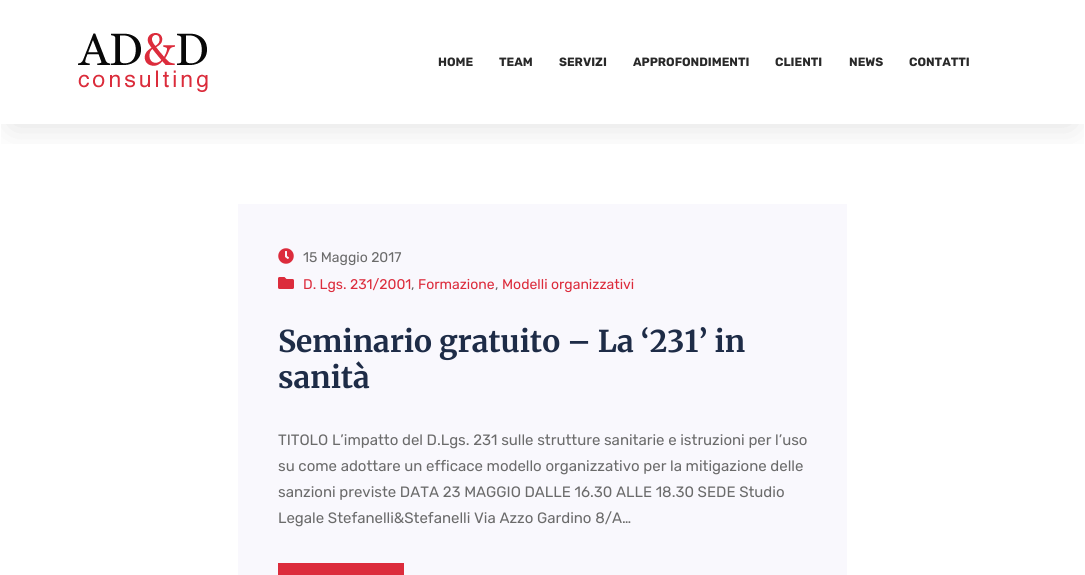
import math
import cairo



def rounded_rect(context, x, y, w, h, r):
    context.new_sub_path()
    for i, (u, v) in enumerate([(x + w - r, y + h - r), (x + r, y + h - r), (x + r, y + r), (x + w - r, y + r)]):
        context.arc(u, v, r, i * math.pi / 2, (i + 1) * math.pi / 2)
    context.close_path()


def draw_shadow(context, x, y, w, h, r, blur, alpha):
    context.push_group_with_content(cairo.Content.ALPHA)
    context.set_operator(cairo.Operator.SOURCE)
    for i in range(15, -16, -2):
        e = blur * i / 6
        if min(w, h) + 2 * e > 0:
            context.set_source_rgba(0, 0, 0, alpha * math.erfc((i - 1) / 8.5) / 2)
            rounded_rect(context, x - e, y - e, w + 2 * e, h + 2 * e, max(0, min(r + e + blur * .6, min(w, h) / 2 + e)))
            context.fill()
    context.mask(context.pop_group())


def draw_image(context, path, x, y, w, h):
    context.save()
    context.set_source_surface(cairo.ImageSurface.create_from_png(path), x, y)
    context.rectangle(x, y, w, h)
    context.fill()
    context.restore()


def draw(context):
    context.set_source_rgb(1, 1, 1)
    context.paint()
    context.save()
    context.rectangle(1, 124, 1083, 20)
    context.clip()
    context.set_source_rgb(42 / 255, 42 / 255, 42 / 255)
    draw_shadow(context, 12, 25, 1061, 100, 0, 17.5, 0.15)
    context.restore()
    draw_image(context, "images/1.png", 78, 33, 130, 59)
    context.set_source_rgb(249 / 255, 248 / 255, 253 / 255)
    context.rectangle(238, 204, 609, 371)
    context.fill()
    draw_image(context, "images/2.png", 278, 248, 16, 16)
    draw_image(context, "images/3.png", 278, 277, 16, 12)
    context.set_source_rgb(220 / 255, 44 / 255, 60 / 255)
    context.rectangle(278, 563, 126, 12)
    context.fill()
    context.select_font_face("Rubik", cairo.FontSlant.NORMAL, cairo.FontWeight.BOLD)
    context.set_font_size(12)
    context.set_source_rgb(41 / 255, 41 / 255, 41 / 255)
    context.move_to(438, 66)
    context.show_text("HOME")
    context.move_to(499, 66)
    context.show_text("TEAM")
    context.move_to(559, 66)
    context.show_text("SERVIZI")
    context.move_to(633, 66)
    context.show_text("APPROFONDIMENTI")
    context.move_to(775, 66)
    context.show_text("CLIENTI")
    context.move_to(849, 66)
    context.show_text("NEWS")
    context.move_to(909, 66)
    context.show_text("CONTATTI")
    context.select_font_face("Rubik")
    context.set_font_size(14)
    context.set_source_rgb(107 / 255, 107 / 255, 107 / 255)
    context.move_to(303, 262)
    context.show_text("15 Maggio 2017")
    context.set_source_rgb(220 / 255, 44 / 255, 60 / 255)
    context.move_to(303, 289)
    context.show_text("D. Lgs. 231/2001")
    context.set_source_rgb(107 / 255, 107 / 255, 107 / 255)
    context.move_to(411, 289)
    context.show_text(",")
    context.set_source_rgb(220 / 255, 44 / 255, 60 / 255)
    context.move_to(418, 289)
    context.show_text("Formazione")
    context.set_source_rgb(107 / 255, 107 / 255, 107 / 255)
    context.move_to(495, 289)
    context.show_text(",")
    context.set_source_rgb(220 / 255, 44 / 255, 60 / 255)
    context.move_to(502, 289)
    context.show_text("Modelli organizzativi")
    context.select_font_face("Merriweather", cairo.FontSlant.NORMAL, cairo.FontWeight.BOLD)
    context.set_font_size(30)
    context.set_source_rgb(30 / 255, 44 / 255, 71 / 255)
    context.move_to(278, 352)
    context.show_text("Seminario gratuito – La ‘231’ in")
    context.move_to(278, 388)
    context.show_text("sanità")
    context.select_font_face("Rubik")
    context.set_font_size(15)
    context.set_source_rgb(107 / 255, 107 / 255, 107 / 255)
    context.move_to(278, 445)
    context.show_text("TITOLO L’impatto del D.Lgs. 231 sulle strutture sanitarie e istruzioni per l’uso")
    context.move_to(278, 471)
    context.show_text("su come adottare un efficace modello organizzativo per la mitigazione delle")
    context.move_to(278, 497)
    context.show_text("sanzioni previste DATA 23 MAGGIO DALLE 16.30 ALLE 18.30 SEDE Studio")
    context.move_to(278, 523)
    context.show_text("Legale Stefanelli&Stefanelli Via Azzo Gardino 8/A…")


surface = cairo.ImageSurface(cairo.Format.RGB24, 1085, 575)
context = cairo.Context(surface)
options = cairo.FontOptions()
options.set_hint_metrics(cairo.HintMetrics.OFF)
options.set_hint_style(cairo.HintStyle.NONE)
context.set_font_options(options)
context.set_miter_limit(4)
draw(context)
surface.write_to_png("out.png")
